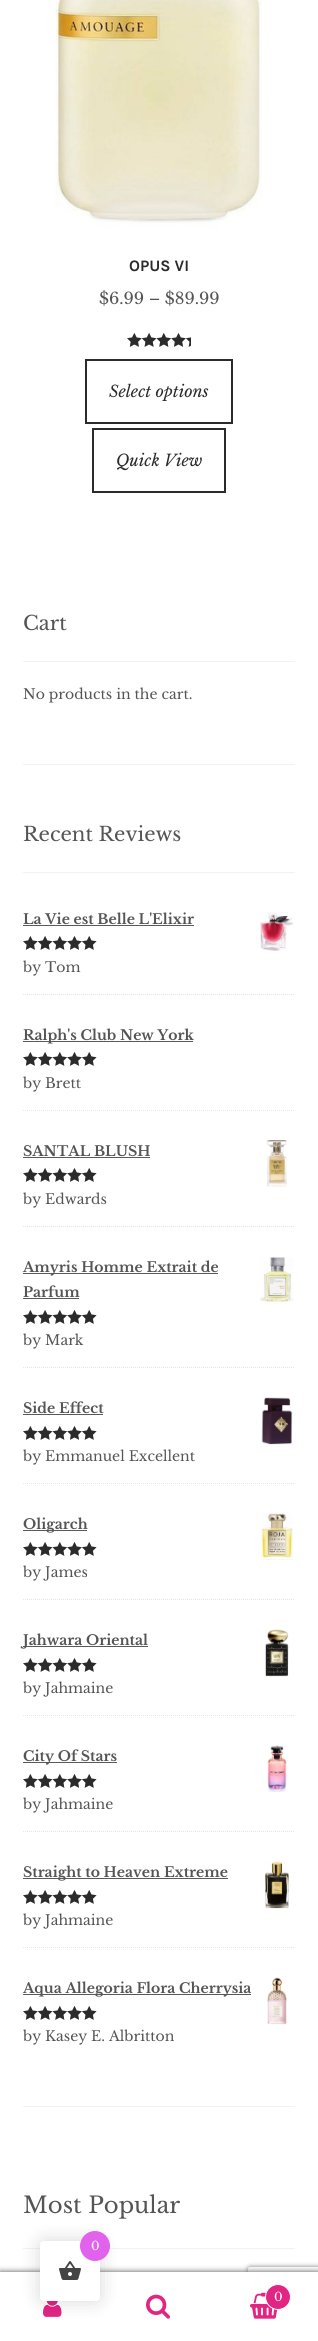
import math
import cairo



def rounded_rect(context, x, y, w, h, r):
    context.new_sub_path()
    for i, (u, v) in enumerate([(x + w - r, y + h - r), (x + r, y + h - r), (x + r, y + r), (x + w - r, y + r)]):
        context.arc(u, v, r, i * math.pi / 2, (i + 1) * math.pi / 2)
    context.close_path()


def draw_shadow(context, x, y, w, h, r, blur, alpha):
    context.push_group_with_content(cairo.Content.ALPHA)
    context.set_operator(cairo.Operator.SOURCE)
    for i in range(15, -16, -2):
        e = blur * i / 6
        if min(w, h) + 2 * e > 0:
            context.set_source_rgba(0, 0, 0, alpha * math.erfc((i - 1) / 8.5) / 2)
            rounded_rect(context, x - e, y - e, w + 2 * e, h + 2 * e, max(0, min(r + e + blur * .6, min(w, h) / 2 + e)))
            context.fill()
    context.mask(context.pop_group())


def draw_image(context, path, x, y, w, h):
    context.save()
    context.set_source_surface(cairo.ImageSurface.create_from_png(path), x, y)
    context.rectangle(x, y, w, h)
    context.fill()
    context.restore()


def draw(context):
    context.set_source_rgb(1, 1, 1)
    context.paint()
    draw_image(context, "images/1.png", 55, 0, 207, 227)
    draw_image(context, "images/2.png", 127, 333, 64, 14)
    draw_image(context, "images/3.png", 127, 333, 64, 14)
    context.rectangle(86, 360, 146, 63)
    context.set_source_rgb(43 / 255, 43 / 255, 43 / 255)
    context.stroke()
    context.rectangle(93, 429, 132, 63)
    context.stroke()
    context.set_source_rgb(242 / 255, 242 / 255, 242 / 255)
    context.rectangle(23, 764, 272, 1)
    context.fill()
    context.rectangle(23, 661, 272, 1)
    context.fill()
    context.rectangle(23, 2106, 272, 1)
    context.fill()
    context.rectangle(23, 872, 272, 1)
    context.fill()
    context.new_path()
    context.move_to(23, 994.5)
    context.line_to(295, 994.5)
    context.set_source_rgb(230 / 255, 230 / 255, 230 / 255)
    context.set_line_width(1)
    context.set_dash([1, 1])
    context.stroke()
    context.set_source_rgb(90 / 255, 90 / 255, 90 / 255)
    context.rectangle(23, 925, 171, 1)
    context.fill()
    draw_image(context, "images/4.png", 260, 912, 34, 39)
    draw_image(context, "images/5.png", 23, 936, 74, 14)
    draw_image(context, "images/6.png", 23, 936, 74, 14)
    context.new_path()
    context.move_to(23, 1110.5)
    context.line_to(295, 1110.5)
    context.set_source_rgb(230 / 255, 230 / 255, 230 / 255)
    context.stroke()
    context.set_source_rgb(90 / 255, 90 / 255, 90 / 255)
    context.rectangle(23, 1041, 170, 1)
    context.fill()
    draw_image(context, "images/5.png", 23, 1052, 74, 14)
    draw_image(context, "images/6.png", 23, 1052, 74, 14)
    context.new_path()
    context.move_to(23, 1226.5)
    context.line_to(295, 1226.5)
    context.set_source_rgb(230 / 255, 230 / 255, 230 / 255)
    context.stroke()
    context.set_source_rgb(90 / 255, 90 / 255, 90 / 255)
    context.rectangle(23, 1157, 127, 1)
    context.fill()
    draw_image(context, "images/7.png", 266, 1140, 21, 47)
    draw_image(context, "images/5.png", 23, 1168, 74, 14)
    draw_image(context, "images/6.png", 23, 1168, 74, 14)
    context.new_path()
    context.move_to(23, 1367.5)
    context.line_to(295, 1367.5)
    context.set_source_rgb(230 / 255, 230 / 255, 230 / 255)
    context.stroke()
    context.set_source_rgb(90 / 255, 90 / 255, 90 / 255)
    context.rectangle(23, 1273, 195, 1)
    context.fill()
    draw_image(context, "images/8.png", 260, 1257, 34, 45)
    context.rectangle(23, 1298, 56, 1)
    context.fill()
    draw_image(context, "images/5.png", 23, 1310, 74, 14)
    draw_image(context, "images/6.png", 23, 1310, 74, 14)
    context.new_path()
    context.move_to(23, 1483.5)
    context.line_to(295, 1483.5)
    context.set_source_rgb(230 / 255, 230 / 255, 230 / 255)
    context.stroke()
    context.set_source_rgb(90 / 255, 90 / 255, 90 / 255)
    context.rectangle(23, 1414, 80, 1)
    context.fill()
    draw_image(context, "images/9.png", 261, 1397, 32, 48)
    draw_image(context, "images/5.png", 23, 1426, 74, 14)
    draw_image(context, "images/6.png", 23, 1426, 74, 14)
    context.new_path()
    context.move_to(23, 1599.5)
    context.line_to(295, 1599.5)
    context.set_source_rgb(230 / 255, 230 / 255, 230 / 255)
    context.stroke()
    context.set_source_rgb(90 / 255, 90 / 255, 90 / 255)
    context.rectangle(23, 1530, 64, 1)
    context.fill()
    draw_image(context, "images/10.png", 261, 1513, 32, 47)
    draw_image(context, "images/5.png", 23, 1542, 74, 14)
    draw_image(context, "images/6.png", 23, 1542, 74, 14)
    context.new_path()
    context.move_to(23, 1715.5)
    context.line_to(295, 1715.5)
    context.set_source_rgb(230 / 255, 230 / 255, 230 / 255)
    context.stroke()
    context.set_source_rgb(90 / 255, 90 / 255, 90 / 255)
    context.rectangle(23, 1646, 125, 1)
    context.fill()
    draw_image(context, "images/11.png", 265, 1629, 24, 48)
    draw_image(context, "images/5.png", 23, 1658, 74, 14)
    draw_image(context, "images/6.png", 23, 1658, 74, 14)
    context.new_path()
    context.move_to(23, 1831.5)
    context.line_to(295, 1831.5)
    context.set_source_rgb(230 / 255, 230 / 255, 230 / 255)
    context.stroke()
    context.set_source_rgb(90 / 255, 90 / 255, 90 / 255)
    context.rectangle(23, 1762, 94, 1)
    context.fill()
    draw_image(context, "images/12.png", 267, 1745, 20, 47)
    draw_image(context, "images/5.png", 23, 1774, 74, 14)
    draw_image(context, "images/6.png", 23, 1774, 74, 14)
    context.new_path()
    context.move_to(23, 1947.5)
    context.line_to(295, 1947.5)
    context.set_source_rgb(230 / 255, 230 / 255, 230 / 255)
    context.stroke()
    context.set_source_rgb(90 / 255, 90 / 255, 90 / 255)
    context.rectangle(23, 1878, 205, 1)
    context.fill()
    draw_image(context, "images/13.png", 265, 1861, 24, 48)
    draw_image(context, "images/5.png", 23, 1890, 74, 14)
    draw_image(context, "images/6.png", 23, 1890, 74, 14)
    context.rectangle(23, 1994, 228, 1)
    context.fill()
    draw_image(context, "images/14.png", 267, 1977, 20, 48)
    draw_image(context, "images/5.png", 23, 2006, 74, 14)
    draw_image(context, "images/6.png", 23, 2006, 74, 14)
    context.set_source_rgb(242 / 255, 242 / 255, 242 / 255)
    context.rectangle(23, 2248, 272, 1)
    context.fill()
    context.set_source_rgb(0, 0, 0)
    draw_shadow(context, 0, 2272, 318, 69, 0, 3, 0.7)
    context.save()
    context.set_fill_rule(cairo.FillRule.EVEN_ODD)
    context.new_path()
    context.move_to(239, 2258)
    context.line_to(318, 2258)
    context.line_to(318, 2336)
    context.line_to(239, 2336)
    context.close_path()
    context.move_to(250, 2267)
    context.line_to(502, 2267)
    context.curve_to(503, 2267, 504, 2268, 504, 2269)
    context.line_to(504, 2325)
    context.curve_to(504, 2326, 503, 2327, 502, 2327)
    context.line_to(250, 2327)
    context.curve_to(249, 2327, 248, 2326, 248, 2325)
    context.line_to(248, 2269)
    context.curve_to(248, 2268, 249, 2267, 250, 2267)
    context.close_path()
    context.clip()
    context.set_source_rgb(128 / 255, 128 / 255, 128 / 255)
    draw_shadow(context, 248, 2267, 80, 60, 2, 2.5, 1)
    context.restore()
    context.set_source_rgb(1, 1, 1)
    context.rectangle(0, 2272, 318, 1)
    context.fill()
    context.rectangle(0, 2273, 318, 68)
    context.fill()
    draw_image(context, "images/15.png", 43, 2301, 19, 16)
    draw_image(context, "images/16.png", 146, 2294, 24, 25)
    draw_image(context, "images/17.png", 250, 2292, 28, 27)
    context.set_source_rgb(226 / 255, 36 / 255, 131 / 255)
    context.arc(278, 2297, 12.5, 0, 2 * math.pi)
    context.fill_preserve()
    context.set_source_rgb(1, 1, 1)
    context.set_dash([])
    context.stroke()
    context.set_source_rgb(0, 0, 0)
    draw_shadow(context, 40, 2241, 60, 60, 4, 10, 0.15)
    context.set_source_rgb(1, 1, 1)
    rounded_rect(context, 40, 2241, 60, 60, 4)
    context.fill()
    context.set_source_rgb(225 / 255, 99 / 255, 237 / 255)
    context.arc(95, 2246, 15, 0, 2 * math.pi)
    context.fill()
    draw_image(context, "images/18.png", 59, 2261, 22, 19)
    context.select_font_face("Karla", cairo.FontSlant.NORMAL, cairo.FontWeight.BOLD)
    context.set_font_size(16)
    context.set_source_rgb(43 / 255, 43 / 255, 43 / 255)
    context.move_to(129, 271)
    context.show_text("OPUS VI")
    context.select_font_face("Libre Baskerville")
    context.set_source_rgb(85 / 255, 85 / 255, 85 / 255)
    context.move_to(99, 304)
    context.show_text("$6.99 – $89.99")
    context.select_font_face("Libre Baskerville", cairo.FontSlant.ITALIC)
    context.set_source_rgb(43 / 255, 43 / 255, 43 / 255)
    context.move_to(109, 397)
    context.show_text("Select options")
    context.move_to(116, 466)
    context.show_text("Quick View")
    context.select_font_face("Libre Baskerville")
    context.set_font_size(19.75)
    context.set_source_rgb(85 / 255, 85 / 255, 85 / 255)
    context.move_to(23, 630)
    context.show_text("Cart")
    context.set_font_size(14)
    context.move_to(23, 699)
    context.show_text("No products in the cart.")
    context.set_font_size(19.75)
    context.move_to(23, 841)
    context.show_text("Recent Reviews")
    context.select_font_face("Libre Baskerville", cairo.FontSlant.NORMAL, cairo.FontWeight.BOLD)
    context.set_font_size(14)
    context.move_to(23, 924)
    context.show_text("La Vie est Belle L'Elixir")
    context.select_font_face("Libre Baskerville")
    context.move_to(23, 972)
    context.show_text("by Tom")
    context.select_font_face("Libre Baskerville", cairo.FontSlant.NORMAL, cairo.FontWeight.BOLD)
    context.move_to(23, 1040)
    context.show_text("Ralph's Club New York")
    context.select_font_face("Libre Baskerville")
    context.move_to(23, 1088)
    context.show_text("by Brett")
    context.select_font_face("Libre Baskerville", cairo.FontSlant.NORMAL, cairo.FontWeight.BOLD)
    context.move_to(23, 1156)
    context.show_text("SANTAL BLUSH")
    context.select_font_face("Libre Baskerville")
    context.move_to(23, 1204)
    context.show_text("by Edwards")
    context.select_font_face("Libre Baskerville", cairo.FontSlant.NORMAL, cairo.FontWeight.BOLD)
    context.move_to(23, 1272)
    context.show_text("Amyris Homme Extrait de")
    context.move_to(23, 1297)
    context.show_text("Parfum")
    context.select_font_face("Libre Baskerville")
    context.move_to(23, 1345)
    context.show_text("by Mark")
    context.select_font_face("Libre Baskerville", cairo.FontSlant.NORMAL, cairo.FontWeight.BOLD)
    context.move_to(23, 1413)
    context.show_text("Side Effect")
    context.select_font_face("Libre Baskerville")
    context.move_to(23, 1461)
    context.show_text("by Emmanuel Excellent")
    context.select_font_face("Libre Baskerville", cairo.FontSlant.NORMAL, cairo.FontWeight.BOLD)
    context.move_to(23, 1529)
    context.show_text("Oligarch")
    context.select_font_face("Libre Baskerville")
    context.move_to(23, 1577)
    context.show_text("by James")
    context.select_font_face("Libre Baskerville", cairo.FontSlant.NORMAL, cairo.FontWeight.BOLD)
    context.move_to(23, 1645)
    context.show_text("Jahwara Oriental")
    context.select_font_face("Libre Baskerville")
    context.move_to(23, 1693)
    context.show_text("by Jahmaine")
    context.select_font_face("Libre Baskerville", cairo.FontSlant.NORMAL, cairo.FontWeight.BOLD)
    context.move_to(23, 1761)
    context.show_text("City Of Stars")
    context.select_font_face("Libre Baskerville")
    context.move_to(23, 1809)
    context.show_text("by Jahmaine")
    context.select_font_face("Libre Baskerville", cairo.FontSlant.NORMAL, cairo.FontWeight.BOLD)
    context.move_to(23, 1877)
    context.show_text("Straight to Heaven Extreme")
    context.select_font_face("Libre Baskerville")
    context.move_to(23, 1925)
    context.show_text("by Jahmaine")
    context.select_font_face("Libre Baskerville", cairo.FontSlant.NORMAL, cairo.FontWeight.BOLD)
    context.move_to(23, 1993)
    context.show_text("Aqua Allegoria Flora Cherrysia")
    context.select_font_face("Libre Baskerville")
    context.move_to(23, 2041)
    context.show_text("by Kasey E. Albritton")
    context.set_font_size(22.75)
    context.move_to(23, 2213)
    context.show_text("Most Popular")
    context.set_font_size(12)
    context.set_source_rgb(1, 1, 1)
    context.move_to(274, 2301)
    context.show_text("0")
    context.move_to(91, 2250)
    context.show_text("0")


surface = cairo.ImageSurface(cairo.Format.RGB24, 318, 2341)
context = cairo.Context(surface)
options = cairo.FontOptions()
options.set_hint_metrics(cairo.HintMetrics.OFF)
options.set_hint_style(cairo.HintStyle.NONE)
context.set_font_options(options)
context.set_miter_limit(4)
draw(context)
surface.write_to_png("out.png")
